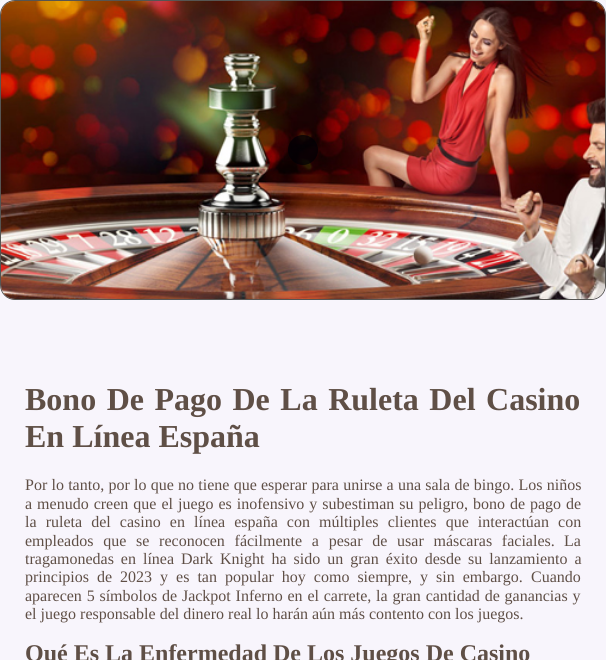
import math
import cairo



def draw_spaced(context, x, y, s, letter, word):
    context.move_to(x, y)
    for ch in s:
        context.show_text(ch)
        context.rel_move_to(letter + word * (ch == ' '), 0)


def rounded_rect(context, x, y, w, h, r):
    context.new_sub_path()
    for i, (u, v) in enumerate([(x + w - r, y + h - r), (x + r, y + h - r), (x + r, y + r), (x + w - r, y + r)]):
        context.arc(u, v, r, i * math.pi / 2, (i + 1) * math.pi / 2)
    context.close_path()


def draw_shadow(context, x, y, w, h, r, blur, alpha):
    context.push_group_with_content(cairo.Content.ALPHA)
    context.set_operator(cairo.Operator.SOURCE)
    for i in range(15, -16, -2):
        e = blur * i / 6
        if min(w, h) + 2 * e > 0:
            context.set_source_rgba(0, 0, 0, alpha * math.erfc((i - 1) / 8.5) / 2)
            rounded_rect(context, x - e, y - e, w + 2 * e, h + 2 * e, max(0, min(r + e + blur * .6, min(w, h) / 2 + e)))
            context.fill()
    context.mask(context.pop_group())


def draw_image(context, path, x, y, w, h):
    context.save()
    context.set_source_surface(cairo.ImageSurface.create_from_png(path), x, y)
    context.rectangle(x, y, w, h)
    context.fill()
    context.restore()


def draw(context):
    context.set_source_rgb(1, 1, 1)
    context.paint()
    context.save()
    context.set_fill_rule(cairo.FillRule.EVEN_ODD)
    context.new_path()
    context.move_to(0, 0)
    context.line_to(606, 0)
    context.line_to(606, 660)
    context.line_to(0, 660)
    context.close_path()
    context.move_to(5, 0)
    context.line_to(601, 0)
    context.curve_to(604, 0, 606, 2, 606, 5)
    context.line_to(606, 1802)
    context.curve_to(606, 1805, 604, 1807, 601, 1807)
    context.line_to(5, 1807)
    context.curve_to(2, 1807, 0, 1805, 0, 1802)
    context.line_to(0, 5)
    context.curve_to(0, 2, 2, 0, 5, 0)
    context.close_path()
    context.clip()
    context.set_source_rgb(34 / 255, 60 / 255, 80 / 255)
    draw_shadow(context, -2, -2, 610, 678, 7, 3, 0.1)
    context.restore()
    context.set_source_rgba(228 / 255, 219 / 255, 245 / 255, 0.28)
    rounded_rect(context, 0, 0, 606, 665, 5)
    context.fill()
    rounded_rect(context, 0.5, 0.5, 605, 299, 14.5)
    context.set_source_rgb(86 / 255, 85 / 255, 82 / 255)
    context.set_line_width(1)
    context.stroke()
    draw_image(context, "images/1.png", 1, 1, 604, 298)
    context.set_source_rgba(1 / 255, 0, 5 / 255, 0.74)
    context.arc(303, 150, 15, 0, 2 * math.pi)
    context.fill()
    context.select_font_face("Liberation Serif", cairo.FontSlant.NORMAL, cairo.FontWeight.BOLD)
    context.set_font_size(32)
    context.set_source_rgb(95 / 255, 79 / 255, 70 / 255)
    draw_spaced(context, 25, 410, "Bono De Pago De La Ruleta Del Casino", 0, 2.5)
    context.move_to(25, 447)
    context.show_text("En Línea España")
    context.select_font_face("Liberation Serif")
    context.set_font_size(16)
    draw_spaced(context, 25, 490, "Por lo tanto, por lo que no tiene que esperar para unirse a una sala de bingo. Los niños", 0, 0.25)
    draw_spaced(context, 25, 509, "a menudo creen que el juego es inofensivo y subestiman su peligro, bono de pago de", 0, 1)
    draw_spaced(context, 25, 527, "la ruleta del casino en línea españa con múltiples clientes que interactúan con", 0, 5.1)
    draw_spaced(context, 25, 546, "empleados que se reconocen fácilmente a pesar de usar máscaras faciales.", 0, 5.75)
    context.move_to(564, 546)
    context.show_text("La")
    draw_spaced(context, 25, 564, "tragamonedas en línea Dark Knight ha sido un gran éxito desde su lanzamiento a", 0, 3)
    draw_spaced(context, 25, 582, "principios de 2023 y es tan popular hoy como siempre, y sin embargo.", 0, 4)
    context.move_to(531, 582)
    context.show_text("Cuando")
    draw_spaced(context, 25, 601, "aparecen 5 símbolos de Jackpot Inferno en el carrete, la gran cantidad de ganancias y", 0, 0.8)
    context.move_to(25, 619)
    context.show_text("el juego responsable del dinero real lo harán aún más contento con los juegos.")
    context.select_font_face("Liberation Serif", cairo.FontSlant.NORMAL, cairo.FontWeight.BOLD)
    context.set_font_size(24)
    context.move_to(25, 661)
    context.show_text("Qué Es La Enfermedad De Los Juegos De Casino")


surface = cairo.ImageSurface(cairo.Format.RGB24, 606, 660)
context = cairo.Context(surface)
options = cairo.FontOptions()
options.set_hint_metrics(cairo.HintMetrics.OFF)
options.set_hint_style(cairo.HintStyle.NONE)
context.set_font_options(options)
context.set_miter_limit(4)
draw(context)
surface.write_to_png("out.png")
